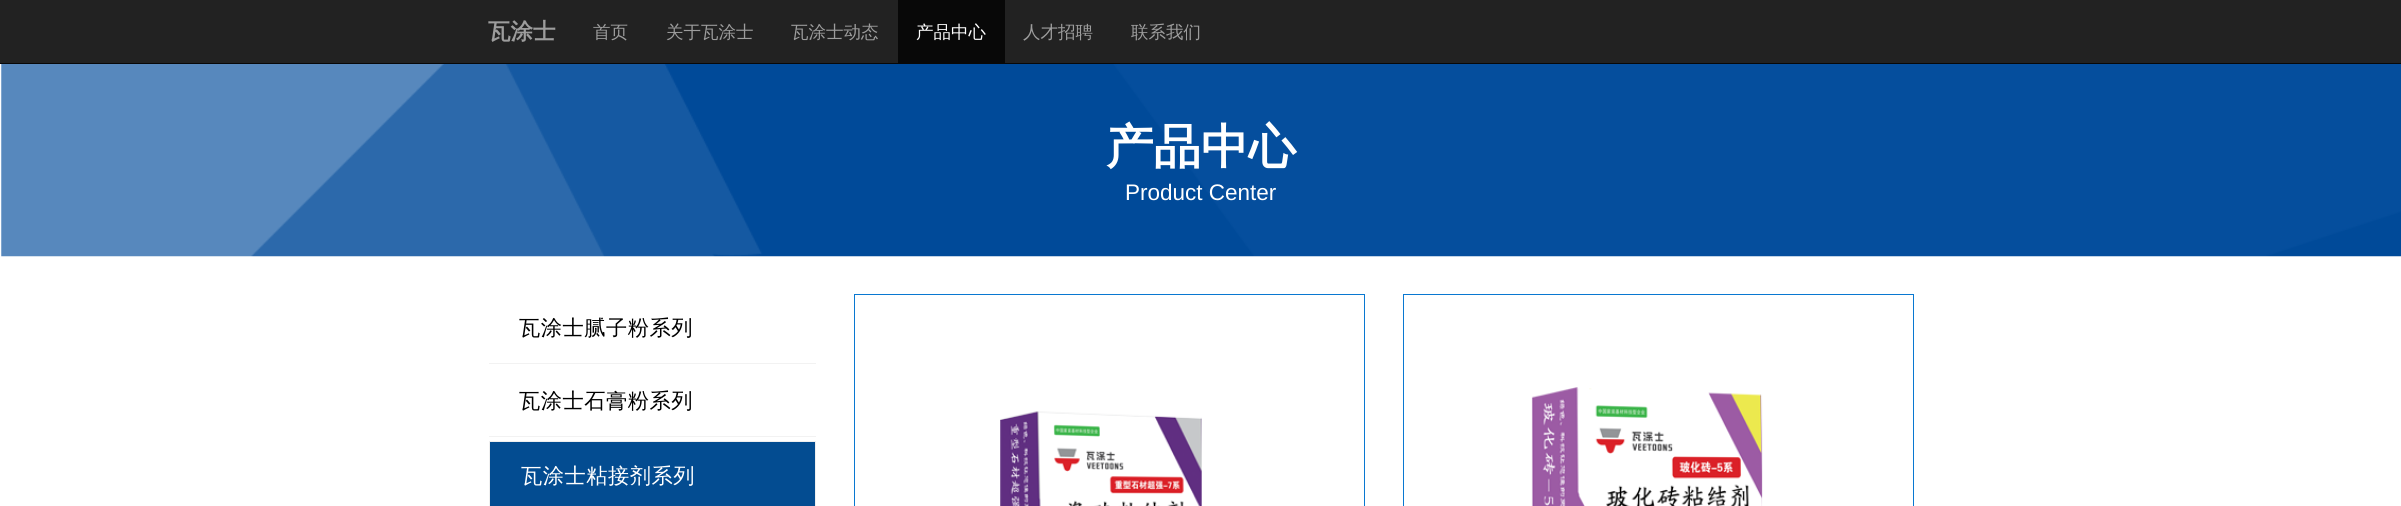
import math
import cairo



def draw_spaced(context, x, y, s, letter, word):
    context.move_to(x, y)
    for ch in s:
        context.show_text(ch)
        context.rel_move_to(letter + word * (ch == ' '), 0)


def draw_image(context, path, x, y, w, h):
    context.save()
    context.set_source_surface(cairo.ImageSurface.create_from_png(path), x, y)
    context.rectangle(x, y, w, h)
    context.fill()
    context.restore()


def draw(context):
    context.set_source_rgb(1, 1, 1)
    context.paint()
    context.set_source_rgb(34 / 255, 34 / 255, 34 / 255)
    context.rectangle(0, 0, 2401, 63)
    context.fill()
    context.set_source_rgb(8 / 255, 8 / 255, 8 / 255)
    context.rectangle(0, 63, 2401, 1)
    context.fill()
    context.rectangle(898, 0, 107, 63)
    context.fill()
    draw_image(context, "images/1.png", 1, 64, 2400, 193)
    context.set_source_rgb(242 / 255, 242 / 255, 242 / 255)
    context.rectangle(489, 363, 327, 1)
    context.fill()
    context.rectangle(489, 436, 327, 1)
    context.fill()
    context.set_source_rgb(3 / 255, 76 / 255, 145 / 255)
    context.rectangle(489.5, 441.5, 326, 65)
    context.fill_preserve()
    context.set_source_rgb(239 / 255, 239 / 255, 239 / 255)
    context.set_line_width(1)
    context.stroke()
    context.set_source_rgb(9 / 255, 120 / 255, 209 / 255)
    context.rectangle(854, 294, 511, 1)
    context.fill()
    context.rectangle(1364, 294, 1, 212)
    context.fill()
    context.rectangle(854, 294, 1, 212)
    context.fill()
    draw_image(context, "images/2.png", 1000, 411, 202, 95)
    context.rectangle(1403, 294, 511, 1)
    context.fill()
    context.rectangle(1913, 294, 1, 212)
    context.fill()
    context.rectangle(1403, 294, 1, 212)
    context.fill()
    draw_image(context, "images/3.png", 1531, 387, 232, 119)
    context.select_font_face("WenQuanYi Zen Hei", cairo.FontSlant.NORMAL, cairo.FontWeight.BOLD)
    context.set_font_size(22.5)
    context.set_source_rgb(157 / 255, 157 / 255, 157 / 255)
    context.move_to(488, 39)
    context.show_text("瓦涂士")
    context.select_font_face("WenQuanYi Zen Hei Medium")
    context.set_font_size(17.5)
    context.move_to(593, 38)
    context.show_text("首页")
    context.move_to(666, 38)
    context.show_text("关于瓦涂士")
    context.move_to(791, 38)
    context.show_text("瓦涂士动态")
    context.set_source_rgb(1, 1, 1)
    context.move_to(916, 38)
    context.show_text("产品中心")
    context.set_source_rgb(157 / 255, 157 / 255, 157 / 255)
    context.move_to(1023, 38)
    context.show_text("人才招聘")
    context.move_to(1131, 38)
    context.show_text("联系我们")
    context.select_font_face("WenQuanYi Zen Hei", cairo.FontSlant.NORMAL, cairo.FontWeight.BOLD)
    context.set_font_size(47.5)
    context.set_source_rgb(1, 1, 1)
    context.move_to(1106, 163)
    context.show_text("产品中心")
    context.select_font_face("Liberation Sans")
    context.set_font_size(22.5)
    context.move_to(1125, 200)
    context.show_text("Product Center")
    context.select_font_face("WenQuanYi Zen Hei Medium")
    context.set_font_size(21.25)
    context.set_source_rgb(0, 0, 0)
    draw_spaced(context, 519, 335, "瓦涂士腻子粉系列", 0.5, 0)
    draw_spaced(context, 519, 408, "瓦涂士石膏粉系列", 0.5, 0)
    context.set_source_rgb(1, 1, 1)
    draw_spaced(context, 521, 483, "瓦涂士粘接剂系列", 0.5, 0)


surface = cairo.ImageSurface(cairo.Format.RGB24, 2401, 506)
context = cairo.Context(surface)
options = cairo.FontOptions()
options.set_hint_metrics(cairo.HintMetrics.OFF)
options.set_hint_style(cairo.HintStyle.NONE)
context.set_font_options(options)
context.set_miter_limit(4)
draw(context)
surface.write_to_png("out.png")
